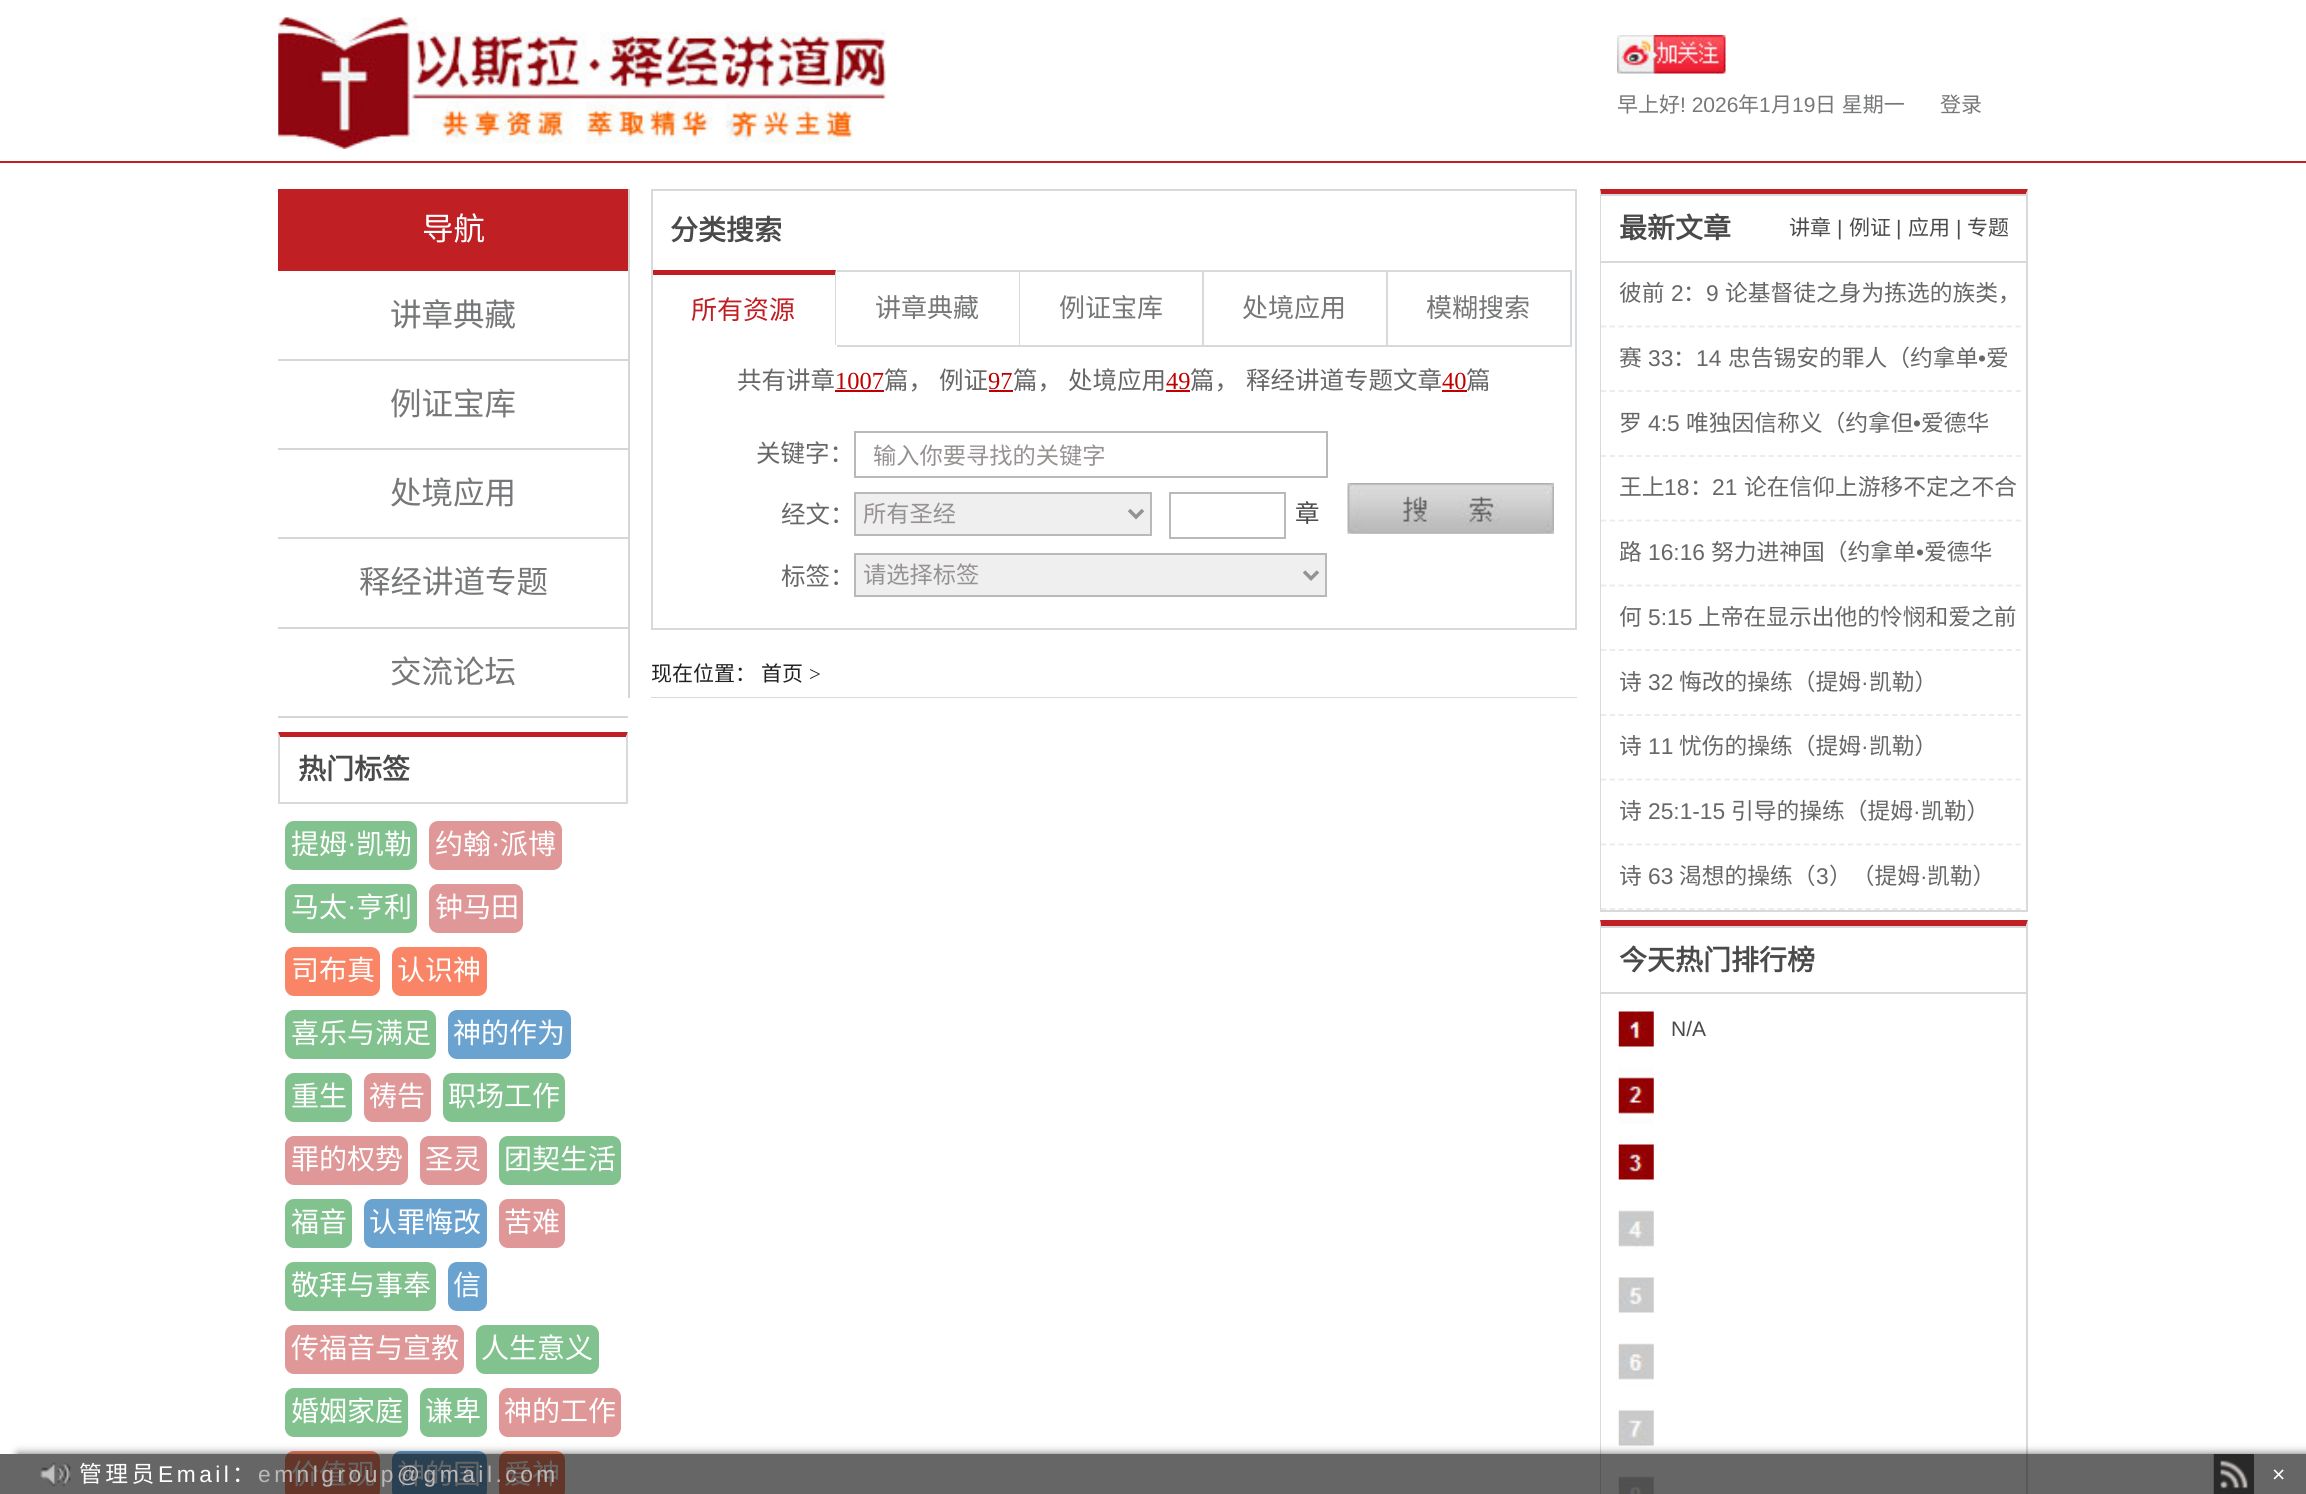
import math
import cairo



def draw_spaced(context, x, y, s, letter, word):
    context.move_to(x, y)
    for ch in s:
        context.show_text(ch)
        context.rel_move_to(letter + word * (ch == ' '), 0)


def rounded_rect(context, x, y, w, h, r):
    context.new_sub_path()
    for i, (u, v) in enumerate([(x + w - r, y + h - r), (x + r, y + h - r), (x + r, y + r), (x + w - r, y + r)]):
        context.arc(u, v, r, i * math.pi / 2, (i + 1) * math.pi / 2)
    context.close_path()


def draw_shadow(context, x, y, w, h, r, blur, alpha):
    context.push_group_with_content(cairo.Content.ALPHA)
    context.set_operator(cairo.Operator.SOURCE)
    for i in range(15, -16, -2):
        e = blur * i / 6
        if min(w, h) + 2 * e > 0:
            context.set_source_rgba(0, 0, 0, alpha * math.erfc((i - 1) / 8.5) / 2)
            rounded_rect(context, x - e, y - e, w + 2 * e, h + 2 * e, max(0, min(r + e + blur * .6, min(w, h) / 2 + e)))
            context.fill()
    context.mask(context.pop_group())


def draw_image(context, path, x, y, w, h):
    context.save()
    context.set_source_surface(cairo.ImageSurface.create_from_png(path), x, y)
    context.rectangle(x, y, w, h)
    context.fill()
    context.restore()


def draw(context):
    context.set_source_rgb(1, 1, 1)
    context.paint()
    context.set_source_rgb(192 / 255, 31 / 255, 35 / 255)
    context.rectangle(0, 161, 2306, 2)
    context.fill()
    draw_image(context, "images/1.png", 278, 17, 608, 132)
    draw_image(context, "images/2.png", 1617, 35, 109, 39)
    context.rectangle(278, 189, 350, 82)
    context.fill()
    context.set_source_rgb(214 / 255, 214 / 255, 214 / 255)
    context.rectangle(278, 359, 350, 2)
    context.fill()
    context.rectangle(278, 448, 350, 2)
    context.fill()
    context.rectangle(278, 537, 350, 2)
    context.fill()
    context.rectangle(278, 627, 350, 2)
    context.fill()
    context.rectangle(278, 716, 350, 2)
    context.fill()
    context.rectangle(628, 189, 2, 509)
    context.fill()
    context.rectangle(652, 190, 924, 439)
    context.set_source_rgb(215 / 255, 218 / 255, 220 / 255)
    context.stroke()
    context.set_source_rgb(192 / 255, 30 / 255, 34 / 255)
    context.new_path()
    context.move_to(653, 270)
    context.line_to(836, 270)
    context.line_to(835, 275)
    context.line_to(653, 275)
    context.close_path()
    context.fill()
    context.set_source_rgb(215 / 255, 218 / 255, 220 / 255)
    context.new_path()
    context.move_to(836, 270)
    context.line_to(836, 345)
    context.line_to(835, 345)
    context.line_to(835, 275)
    context.close_path()
    context.fill()
    context.rectangle(837, 270, 735, 2)
    context.fill()
    context.rectangle(1019, 270, 1, 77)
    context.fill()
    context.rectangle(837, 345, 183, 2)
    context.fill()
    context.rectangle(1202, 270, 2, 77)
    context.fill()
    context.rectangle(1020, 345, 184, 2)
    context.fill()
    context.rectangle(1386, 270, 2, 77)
    context.fill()
    context.rectangle(1204, 345, 184, 2)
    context.fill()
    context.rectangle(1570, 270, 2, 77)
    context.fill()
    context.rectangle(1388, 345, 184, 2)
    context.fill()
    context.set_source_rgb(192 / 255, 0, 0)
    context.rectangle(835, 390, 49, 2)
    context.fill()
    context.rectangle(989, 390, 24, 2)
    context.fill()
    context.rectangle(1166, 390, 24, 2)
    context.fill()
    context.rectangle(1442, 390, 25, 2)
    context.fill()
    context.rectangle(855, 432, 472, 45)
    context.set_source_rgb(185 / 255, 185 / 255, 185 / 255)
    context.stroke()
    context.set_source_rgb(239 / 255, 239 / 255, 239 / 255)
    context.rectangle(855, 493, 296, 42)
    context.fill_preserve()
    context.set_source_rgb(185 / 255, 185 / 255, 185 / 255)
    context.stroke()
    context.new_path()
    context.move_to(1129, 510)
    context.line_to(1136, 517)
    context.line_to(1143, 510)
    context.set_source_rgb(151 / 255, 146 / 255, 146 / 255)
    context.set_line_width(3.5)
    context.stroke()
    context.rectangle(1170, 493, 115, 45)
    context.set_source_rgb(185 / 255, 185 / 255, 185 / 255)
    context.set_line_width(2)
    context.stroke()
    context.set_source_rgb(239 / 255, 239 / 255, 239 / 255)
    context.rectangle(855, 554, 471, 42)
    context.fill_preserve()
    context.set_source_rgb(185 / 255, 185 / 255, 185 / 255)
    context.stroke()
    context.new_path()
    context.move_to(1304, 571.5)
    context.line_to(1311, 578.5)
    context.line_to(1318, 571.5)
    context.set_source_rgb(151 / 255, 146 / 255, 146 / 255)
    context.set_line_width(3.5)
    context.stroke()
    draw_image(context, "images/3.png", 1347, 483, 207, 51)
    context.set_source_rgb(215 / 255, 218 / 255, 220 / 255)
    context.rectangle(651, 697, 926, 1)
    context.fill()
    context.set_source_rgb(192 / 255, 31 / 255, 35 / 255)
    context.new_path()
    context.move_to(278, 732)
    context.line_to(628, 732)
    context.line_to(626, 737)
    context.line_to(280, 737)
    context.close_path()
    context.fill()
    context.set_source_rgb(215 / 255, 218 / 255, 220 / 255)
    context.new_path()
    context.move_to(628, 732)
    context.line_to(628, 803)
    context.line_to(626, 802)
    context.line_to(626, 737)
    context.close_path()
    context.fill()
    context.rectangle(278, 802, 350, 2)
    context.fill()
    context.new_path()
    context.move_to(278, 803)
    context.line_to(278, 732)
    context.line_to(280, 737)
    context.line_to(280, 802)
    context.close_path()
    context.fill()
    context.set_source_rgb(130 / 255, 194 / 255, 143 / 255)
    rounded_rect(context, 285, 821, 132, 49, 9)
    context.fill()
    context.set_source_rgb(223 / 255, 151 / 255, 152 / 255)
    rounded_rect(context, 429, 821, 133, 49, 9)
    context.fill()
    context.set_source_rgb(130 / 255, 194 / 255, 143 / 255)
    rounded_rect(context, 285, 884, 132, 49, 9)
    context.fill()
    context.set_source_rgb(223 / 255, 151 / 255, 152 / 255)
    rounded_rect(context, 429, 884, 94, 49, 9)
    context.fill()
    context.set_source_rgb(249 / 255, 133 / 255, 102 / 255)
    rounded_rect(context, 285, 947, 95, 49, 9)
    context.fill()
    rounded_rect(context, 392, 947, 95, 49, 9)
    context.fill()
    context.set_source_rgb(130 / 255, 194 / 255, 143 / 255)
    rounded_rect(context, 285, 1010, 151, 49, 9)
    context.fill()
    context.set_source_rgb(106 / 255, 162 / 255, 208 / 255)
    rounded_rect(context, 448, 1010, 123, 49, 9)
    context.fill()
    context.set_source_rgb(130 / 255, 194 / 255, 143 / 255)
    rounded_rect(context, 285, 1073, 67, 49, 9)
    context.fill()
    context.set_source_rgb(223 / 255, 151 / 255, 152 / 255)
    rounded_rect(context, 364, 1073, 67, 49, 9)
    context.fill()
    context.set_source_rgb(130 / 255, 194 / 255, 143 / 255)
    rounded_rect(context, 443, 1073, 122, 49, 9)
    context.fill()
    context.set_source_rgb(223 / 255, 151 / 255, 152 / 255)
    rounded_rect(context, 285, 1136, 123, 49, 9)
    context.fill()
    rounded_rect(context, 420, 1136, 67, 49, 9)
    context.fill()
    context.set_source_rgb(130 / 255, 194 / 255, 143 / 255)
    rounded_rect(context, 499, 1136, 122, 49, 9)
    context.fill()
    rounded_rect(context, 285, 1199, 67, 49, 9)
    context.fill()
    context.set_source_rgb(106 / 255, 162 / 255, 208 / 255)
    rounded_rect(context, 364, 1199, 123, 49, 9)
    context.fill()
    context.set_source_rgb(223 / 255, 151 / 255, 152 / 255)
    rounded_rect(context, 499, 1199, 66, 49, 9)
    context.fill()
    context.set_source_rgb(130 / 255, 194 / 255, 143 / 255)
    rounded_rect(context, 285, 1262, 151, 49, 9)
    context.fill()
    context.set_source_rgb(106 / 255, 162 / 255, 208 / 255)
    rounded_rect(context, 448, 1262, 39, 49, 9)
    context.fill()
    context.set_source_rgb(223 / 255, 151 / 255, 152 / 255)
    rounded_rect(context, 285, 1325, 179, 49, 9)
    context.fill()
    context.set_source_rgb(130 / 255, 194 / 255, 143 / 255)
    rounded_rect(context, 476, 1325, 123, 49, 9)
    context.fill()
    rounded_rect(context, 285, 1388, 123, 49, 9)
    context.fill()
    rounded_rect(context, 420, 1388, 67, 49, 9)
    context.fill()
    context.set_source_rgb(223 / 255, 151 / 255, 152 / 255)
    rounded_rect(context, 499, 1388, 122, 49, 9)
    context.fill()
    context.set_source_rgb(249 / 255, 133 / 255, 102 / 255)
    rounded_rect(context, 285, 1451, 95, 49, 9)
    context.fill()
    context.set_source_rgb(106 / 255, 162 / 255, 208 / 255)
    rounded_rect(context, 392, 1451, 95, 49, 9)
    context.fill()
    context.set_source_rgb(249 / 255, 133 / 255, 102 / 255)
    rounded_rect(context, 499, 1451, 66, 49, 9)
    context.fill()
    context.set_source_rgb(192 / 255, 31 / 255, 35 / 255)
    context.new_path()
    context.move_to(1600, 189)
    context.line_to(2028, 189)
    context.line_to(2026, 194)
    context.line_to(1601, 194)
    context.close_path()
    context.fill()
    context.set_source_rgb(215 / 255, 218 / 255, 220 / 255)
    context.new_path()
    context.move_to(2028, 189)
    context.line_to(2028, 912)
    context.line_to(2026, 910)
    context.line_to(2026, 194)
    context.close_path()
    context.fill()
    context.rectangle(1600, 910, 428, 2)
    context.fill()
    context.new_path()
    context.move_to(1600, 912)
    context.line_to(1600, 189)
    context.line_to(1601, 194)
    context.line_to(1601, 910)
    context.close_path()
    context.fill()
    context.rectangle(1601, 194, 426, 2)
    context.fill()
    context.rectangle(1601, 261, 426, 2)
    context.fill()
    context.new_path()
    context.move_to(1601, 326.5)
    context.line_to(2021, 326.5)
    context.set_source_rgb(235 / 255, 234 / 255, 234 / 255)
    context.set_line_width(1.8)
    context.set_dash([5.25, 3.57])
    context.stroke()
    context.new_path()
    context.move_to(1601, 391)
    context.line_to(2021, 391)
    context.stroke()
    context.new_path()
    context.move_to(1601, 456)
    context.line_to(2021, 456)
    context.stroke()
    context.new_path()
    context.move_to(1601, 520.5)
    context.line_to(2021, 520.5)
    context.stroke()
    context.new_path()
    context.move_to(1601, 585.5)
    context.line_to(2021, 585.5)
    context.stroke()
    context.new_path()
    context.move_to(1601, 650)
    context.line_to(2021, 650)
    context.stroke()
    context.new_path()
    context.move_to(1601, 715)
    context.line_to(2021, 715)
    context.stroke()
    context.new_path()
    context.move_to(1601, 779.5)
    context.line_to(2021, 779.5)
    context.stroke()
    context.new_path()
    context.move_to(1601, 844.5)
    context.line_to(2021, 844.5)
    context.stroke()
    context.new_path()
    context.move_to(1601, 909)
    context.line_to(2021, 909)
    context.stroke()
    context.set_source_rgb(192 / 255, 31 / 255, 35 / 255)
    context.new_path()
    context.move_to(1600, 920)
    context.line_to(2028, 920)
    context.line_to(2026, 926)
    context.line_to(1601, 926)
    context.close_path()
    context.fill()
    context.set_source_rgb(215 / 255, 218 / 255, 220 / 255)
    context.new_path()
    context.move_to(2028, 920)
    context.line_to(2028, 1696)
    context.line_to(2026, 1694)
    context.line_to(2026, 926)
    context.close_path()
    context.fill()
    context.new_path()
    context.move_to(1600, 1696)
    context.line_to(1600, 920)
    context.line_to(1601, 926)
    context.line_to(1601, 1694)
    context.close_path()
    context.fill()
    context.rectangle(1601, 926, 426, 2)
    context.fill()
    context.rectangle(1601, 992, 426, 2)
    context.fill()
    draw_image(context, "images/4.png", 1618, 1011, 36, 483)
    context.save()
    context.set_fill_rule(cairo.FillRule.EVEN_ODD)
    context.new_path()
    context.move_to(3, 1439)
    context.line_to(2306, 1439)
    context.line_to(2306, 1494)
    context.line_to(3, 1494)
    context.close_path()
    context.move_to(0, 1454)
    context.line_to(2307, 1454)
    context.line_to(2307, 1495)
    context.line_to(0, 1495)
    context.close_path()
    context.clip()
    context.set_source_rgb(0, 0, 0)
    draw_shadow(context, 18, 1454, 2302, 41, 0, 4.5, 0.6)
    context.restore()
    context.select_font_face("Noto Sans CJK SC")
    context.set_font_size(21)
    context.set_source_rgb(118 / 255, 119 / 255, 120 / 255)
    context.move_to(1617, 112)
    context.show_text("早上好")
    context.select_font_face("Liberation Sans")
    context.move_to(1680, 112)
    context.show_text("! 2026")
    context.select_font_face("Noto Sans CJK SC")
    context.move_to(1738, 112)
    context.show_text("年")
    context.select_font_face("Liberation Sans")
    context.move_to(1759, 112)
    context.show_text("1")
    context.select_font_face("Noto Sans CJK SC")
    context.move_to(1771, 112)
    context.show_text("月")
    context.select_font_face("Liberation Sans")
    context.move_to(1792, 112)
    context.show_text("19")
    context.select_font_face("Noto Sans CJK SC")
    draw_spaced(context, 1815, 112, "日 星期一", 0, 1)
    context.move_to(1940, 112)
    context.show_text("登录")
    context.set_font_size(31.5)
    context.set_source_rgb(1, 1, 1)
    context.move_to(422, 240)
    context.show_text("导航")
    context.set_source_rgb(118 / 255, 119 / 255, 120 / 255)
    context.move_to(390, 326)
    context.show_text("讲章典藏")
    context.move_to(390, 415)
    context.show_text("例证宝库")
    context.move_to(390, 504)
    context.show_text("处境应用")
    context.move_to(359, 593)
    context.show_text("释经讲道专题")
    context.move_to(390, 683)
    context.show_text("交流论坛")
    context.select_font_face("Noto Sans CJK SC", cairo.FontSlant.NORMAL, cairo.FontWeight.BOLD)
    context.set_font_size(28)
    context.set_source_rgb(74 / 255, 74 / 255, 74 / 255)
    context.move_to(670, 240)
    context.show_text("分类搜索")
    context.select_font_face("Noto Sans CJK SC")
    context.set_font_size(26)
    context.set_source_rgb(192 / 255, 30 / 255, 34 / 255)
    context.move_to(691, 319)
    context.show_text("所有资源")
    context.set_source_rgb(118 / 255, 119 / 255, 120 / 255)
    context.move_to(875, 317)
    context.show_text("讲章典藏")
    context.move_to(1059, 317)
    context.show_text("例证宝库")
    context.move_to(1242, 317)
    context.show_text("处境应用")
    context.move_to(1426, 317)
    context.show_text("模糊搜索")
    context.set_font_size(24.5)
    context.set_source_rgb(103 / 255, 103 / 255, 103 / 255)
    context.move_to(737, 389)
    context.show_text("共有讲章")
    context.select_font_face("Liberation Serif")
    context.set_source_rgb(192 / 255, 0, 0)
    context.move_to(835, 389)
    context.show_text("1007")
    context.select_font_face("Noto Sans CJK SC")
    context.set_source_rgb(103 / 255, 103 / 255, 103 / 255)
    context.move_to(884, 389)
    context.show_text("篇，")
    context.move_to(939, 389)
    context.show_text("例证")
    context.select_font_face("Liberation Serif")
    context.set_source_rgb(192 / 255, 0, 0)
    context.move_to(988, 389)
    context.show_text("97")
    context.select_font_face("Noto Sans CJK SC")
    context.set_source_rgb(103 / 255, 103 / 255, 103 / 255)
    context.move_to(1013, 389)
    context.show_text("篇，")
    context.move_to(1068, 389)
    context.show_text("处境应用")
    context.select_font_face("Liberation Serif")
    context.set_source_rgb(192 / 255, 0, 0)
    context.move_to(1166, 389)
    context.show_text("49")
    context.select_font_face("Noto Sans CJK SC")
    context.set_source_rgb(103 / 255, 103 / 255, 103 / 255)
    context.move_to(1190, 389)
    context.show_text("篇，")
    context.move_to(1246, 389)
    context.show_text("释经讲道专题文章")
    context.select_font_face("Liberation Serif")
    context.set_source_rgb(192 / 255, 0, 0)
    context.move_to(1442, 389)
    context.show_text("40")
    context.select_font_face("Noto Sans CJK SC")
    context.set_source_rgb(103 / 255, 103 / 255, 103 / 255)
    context.move_to(1466, 389)
    context.show_text("篇")
    context.move_to(756, 462)
    context.show_text("关键字：")
    context.set_font_size(23.25)
    context.set_source_rgb(151 / 255, 146 / 255, 146 / 255)
    context.move_to(873, 464)
    context.show_text("输入你要寻找的关键字")
    context.set_font_size(24.5)
    context.set_source_rgb(103 / 255, 103 / 255, 103 / 255)
    context.move_to(781, 523)
    context.show_text("经文：")
    context.set_font_size(23.25)
    context.set_source_rgb(151 / 255, 146 / 255, 146 / 255)
    context.move_to(863, 522)
    context.show_text("所有圣经")
    context.set_font_size(24.5)
    context.set_source_rgb(74 / 255, 74 / 255, 74 / 255)
    context.move_to(1295, 522)
    context.show_text("章")
    context.set_source_rgb(103 / 255, 103 / 255, 103 / 255)
    context.move_to(781, 585)
    context.show_text("标签：")
    context.set_font_size(23.25)
    context.set_source_rgb(151 / 255, 146 / 255, 146 / 255)
    context.move_to(863, 583)
    context.show_text("请选择标签")
    context.set_font_size(21)
    context.set_source_rgb(33 / 255, 33 / 255, 33 / 255)
    context.move_to(651, 681)
    context.show_text("现在位置：")
    context.move_to(761, 681)
    context.show_text("首页")
    context.select_font_face("Liberation Serif")
    context.move_to(809, 681)
    context.show_text(">")
    context.select_font_face("Noto Sans CJK SC", cairo.FontSlant.NORMAL, cairo.FontWeight.BOLD)
    context.set_font_size(28)
    context.set_source_rgb(74 / 255, 74 / 255, 74 / 255)
    context.move_to(298, 779)
    context.show_text("热门标签")
    context.select_font_face("Noto Sans CJK SC")
    context.set_source_rgb(1, 1, 1)
    context.move_to(291, 854)
    context.show_text("提姆")
    context.select_font_face("Liberation Serif")
    context.move_to(347, 854)
    context.show_text("·")
    context.select_font_face("Noto Sans CJK SC")
    context.move_to(356, 854)
    context.show_text("凯勒")
    context.move_to(435, 854)
    context.show_text("约翰")
    context.select_font_face("Liberation Serif")
    context.move_to(491, 854)
    context.show_text("·")
    context.select_font_face("Noto Sans CJK SC")
    context.move_to(500, 854)
    context.show_text("派博")
    context.move_to(291, 917)
    context.show_text("马太")
    context.select_font_face("Liberation Serif")
    context.move_to(347, 917)
    context.show_text("·")
    context.select_font_face("Noto Sans CJK SC")
    context.move_to(356, 917)
    context.show_text("亨利")
    context.move_to(435, 917)
    context.show_text("钟马田")
    context.move_to(291, 980)
    context.show_text("司布真")
    context.move_to(397, 980)
    context.show_text("认识神")
    context.move_to(291, 1043)
    context.show_text("喜乐与满足")
    context.move_to(453, 1043)
    context.show_text("神的作为")
    context.move_to(291, 1106)
    context.show_text("重生")
    context.move_to(369, 1106)
    context.show_text("祷告")
    context.move_to(448, 1106)
    context.show_text("职场工作")
    context.move_to(291, 1169)
    context.show_text("罪的权势")
    context.move_to(425, 1169)
    context.show_text("圣灵")
    context.move_to(504, 1169)
    context.show_text("团契生活")
    context.move_to(291, 1232)
    context.show_text("福音")
    context.move_to(369, 1232)
    context.show_text("认罪悔改")
    context.move_to(504, 1232)
    context.show_text("苦难")
    context.move_to(291, 1295)
    context.show_text("敬拜与事奉")
    context.move_to(453, 1295)
    context.show_text("信")
    context.move_to(291, 1358)
    context.show_text("传福音与宣教")
    context.move_to(481, 1358)
    context.show_text("人生意义")
    context.move_to(291, 1421)
    context.show_text("婚姻家庭")
    context.move_to(425, 1421)
    context.show_text("谦卑")
    context.move_to(504, 1421)
    context.show_text("神的工作")
    context.move_to(291, 1484)
    context.show_text("价值观")
    context.move_to(397, 1484)
    context.show_text("神的国")
    context.move_to(504, 1484)
    context.show_text("爱神")
    context.select_font_face("Noto Sans CJK SC", cairo.FontSlant.NORMAL, cairo.FontWeight.BOLD)
    context.set_source_rgb(74 / 255, 74 / 255, 74 / 255)
    context.move_to(1619, 238)
    context.show_text("最新文章")
    context.select_font_face("Noto Sans CJK SC")
    context.set_font_size(21)
    context.move_to(1789, 235)
    context.show_text("讲章")
    context.select_font_face("Liberation Sans")
    context.move_to(1837, 235)
    context.show_text("|")
    context.select_font_face("Noto Sans CJK SC")
    context.move_to(1849, 235)
    context.show_text("例证")
    context.select_font_face("Liberation Sans")
    context.move_to(1896, 235)
    context.show_text("|")
    context.select_font_face("Noto Sans CJK SC")
    context.move_to(1908, 235)
    context.show_text("应用")
    context.select_font_face("Liberation Sans")
    context.move_to(1956, 235)
    context.show_text("|")
    context.select_font_face("Noto Sans CJK SC")
    context.move_to(1967, 235)
    context.show_text("专题")
    context.set_font_size(22.75)
    context.set_source_rgb(103 / 255, 103 / 255, 103 / 255)
    context.move_to(1619, 301)
    context.show_text("彼前")
    context.select_font_face("Liberation Sans")
    context.move_to(1671, 301)
    context.show_text("2")
    context.select_font_face("Noto Sans CJK SC")
    context.move_to(1683, 301)
    context.show_text("：")
    context.select_font_face("Liberation Sans")
    context.move_to(1706, 301)
    context.show_text("9")
    context.select_font_face("Noto Sans CJK SC")
    context.move_to(1725, 301)
    context.show_text("论基督徒之身为拣选的族类，")
    context.move_to(1619, 366)
    context.show_text("赛")
    context.select_font_face("Liberation Sans")
    context.move_to(1648, 366)
    context.show_text("33")
    context.select_font_face("Noto Sans CJK SC")
    context.move_to(1673, 366)
    context.show_text("：")
    context.select_font_face("Liberation Sans")
    context.move_to(1696, 366)
    context.show_text("14")
    context.select_font_face("Noto Sans CJK SC")
    context.move_to(1728, 366)
    context.show_text("忠告锡安的罪人（约拿单")
    context.select_font_face("Liberation Sans")
    context.move_to(1978, 366)
    context.show_text("•")
    context.select_font_face("Noto Sans CJK SC")
    context.move_to(1986, 366)
    context.show_text("爱")
    context.move_to(1619, 431)
    context.show_text("罗")
    context.select_font_face("Liberation Sans")
    context.move_to(1648, 431)
    context.show_text("4:5")
    context.select_font_face("Noto Sans CJK SC")
    context.move_to(1686, 431)
    context.show_text("唯独因信称义（约拿但")
    context.select_font_face("Liberation Sans")
    context.move_to(1913, 431)
    context.show_text("•")
    context.select_font_face("Noto Sans CJK SC")
    context.move_to(1921, 431)
    context.show_text("爱德华")
    context.move_to(1619, 495)
    context.show_text("王上")
    context.select_font_face("Liberation Sans")
    context.move_to(1664, 495)
    context.show_text("18")
    context.select_font_face("Noto Sans CJK SC")
    context.move_to(1690, 495)
    context.show_text("：")
    context.select_font_face("Liberation Sans")
    context.move_to(1712, 495)
    context.show_text("21")
    context.select_font_face("Noto Sans CJK SC")
    context.move_to(1744, 495)
    context.show_text("论在信仰上游移不定之不合")
    context.move_to(1619, 560)
    context.show_text("路")
    context.select_font_face("Liberation Sans")
    context.move_to(1648, 560)
    context.show_text("16:16")
    context.select_font_face("Noto Sans CJK SC")
    context.move_to(1711, 560)
    context.show_text("努力进神国（约拿单")
    context.select_font_face("Liberation Sans")
    context.move_to(1916, 560)
    context.show_text("•")
    context.select_font_face("Noto Sans CJK SC")
    context.move_to(1924, 560)
    context.show_text("爱德华")
    context.move_to(1619, 625)
    context.show_text("何")
    context.select_font_face("Liberation Sans")
    context.move_to(1648, 625)
    context.show_text("5:15")
    context.select_font_face("Noto Sans CJK SC")
    context.move_to(1698, 625)
    context.show_text("上帝在显示出他的怜悯和爱之前")
    context.move_to(1619, 690)
    context.show_text("诗")
    context.select_font_face("Liberation Sans")
    context.move_to(1648, 690)
    context.show_text("32")
    context.select_font_face("Noto Sans CJK SC")
    context.move_to(1679, 690)
    context.show_text("悔改的操练（提姆")
    context.select_font_face("Liberation Sans")
    context.move_to(1861, 690)
    context.show_text("·")
    context.select_font_face("Noto Sans CJK SC")
    context.move_to(1869, 690)
    context.show_text("凯勒）")
    context.move_to(1619, 754)
    context.show_text("诗")
    context.select_font_face("Liberation Sans")
    context.move_to(1648, 754)
    context.show_text("11")
    context.select_font_face("Noto Sans CJK SC")
    context.move_to(1679, 754)
    context.show_text("忧伤的操练（提姆")
    context.select_font_face("Liberation Sans")
    context.move_to(1861, 754)
    context.show_text("·")
    context.select_font_face("Noto Sans CJK SC")
    context.move_to(1869, 754)
    context.show_text("凯勒）")
    context.move_to(1619, 819)
    context.show_text("诗")
    context.select_font_face("Liberation Sans")
    context.move_to(1648, 819)
    context.show_text("25:1-15")
    context.select_font_face("Noto Sans CJK SC")
    context.move_to(1731, 819)
    context.show_text("引导的操练（提姆")
    context.select_font_face("Liberation Sans")
    context.move_to(1913, 819)
    context.show_text("·")
    context.select_font_face("Noto Sans CJK SC")
    context.move_to(1921, 819)
    context.show_text("凯勒）")
    context.move_to(1619, 884)
    context.show_text("诗")
    context.select_font_face("Liberation Sans")
    context.move_to(1648, 884)
    context.show_text("63")
    context.select_font_face("Noto Sans CJK SC")
    context.move_to(1679, 884)
    context.show_text("渴想的操练（")
    context.select_font_face("Liberation Sans")
    context.move_to(1816, 884)
    context.show_text("3")
    context.select_font_face("Noto Sans CJK SC")
    context.move_to(1829, 884)
    context.show_text("）（提姆")
    context.select_font_face("Liberation Sans")
    context.move_to(1920, 884)
    context.show_text("·")
    context.select_font_face("Noto Sans CJK SC")
    context.move_to(1927, 884)
    context.show_text("凯勒）")
    context.select_font_face("Noto Sans CJK SC", cairo.FontSlant.NORMAL, cairo.FontWeight.BOLD)
    context.set_font_size(28)
    context.set_source_rgb(74 / 255, 74 / 255, 74 / 255)
    context.move_to(1619, 970)
    context.show_text("今天热门排行榜")
    context.select_font_face("Liberation Sans")
    context.set_font_size(21)
    context.move_to(1671, 1036)
    context.show_text("N/A")
    context.set_source_rgba(0, 0, 0, 0.6)
    context.rectangle(0, 1454, 2306, 40)
    context.fill()
    draw_image(context, "images/5.png", 40, 1462, 31, 25)
    context.select_font_face("Noto Sans CJK SC")
    context.set_font_size(22.75)
    context.set_source_rgb(1, 1, 1)
    draw_spaced(context, 79, 1482, "管理员", 3.5, 0)
    context.select_font_face("Liberation Sans")
    draw_spaced(context, 158, 1482, "Email", 3.5, 0)
    context.select_font_face("Noto Sans CJK SC")
    draw_spaced(context, 232, 1482, "：", 3.5, 0)
    context.select_font_face("Liberation Sans")
    context.set_source_rgb(188 / 255, 184 / 255, 184 / 255)
    draw_spaced(context, 258, 1482, "emnlgroup@gmail.com", 3.5, 0)
    draw_image(context, "images/6.png", 2213, 1454, 41, 40)
    context.set_source_rgb(1, 1, 1)
    draw_spaced(context, 2272, 1482, "×", 3.5, 0)


surface = cairo.ImageSurface(cairo.Format.RGB24, 2306, 1494)
context = cairo.Context(surface)
options = cairo.FontOptions()
options.set_hint_metrics(cairo.HintMetrics.OFF)
options.set_hint_style(cairo.HintStyle.NONE)
context.set_font_options(options)
context.set_miter_limit(4)
draw(context)
surface.write_to_png("out.png")
